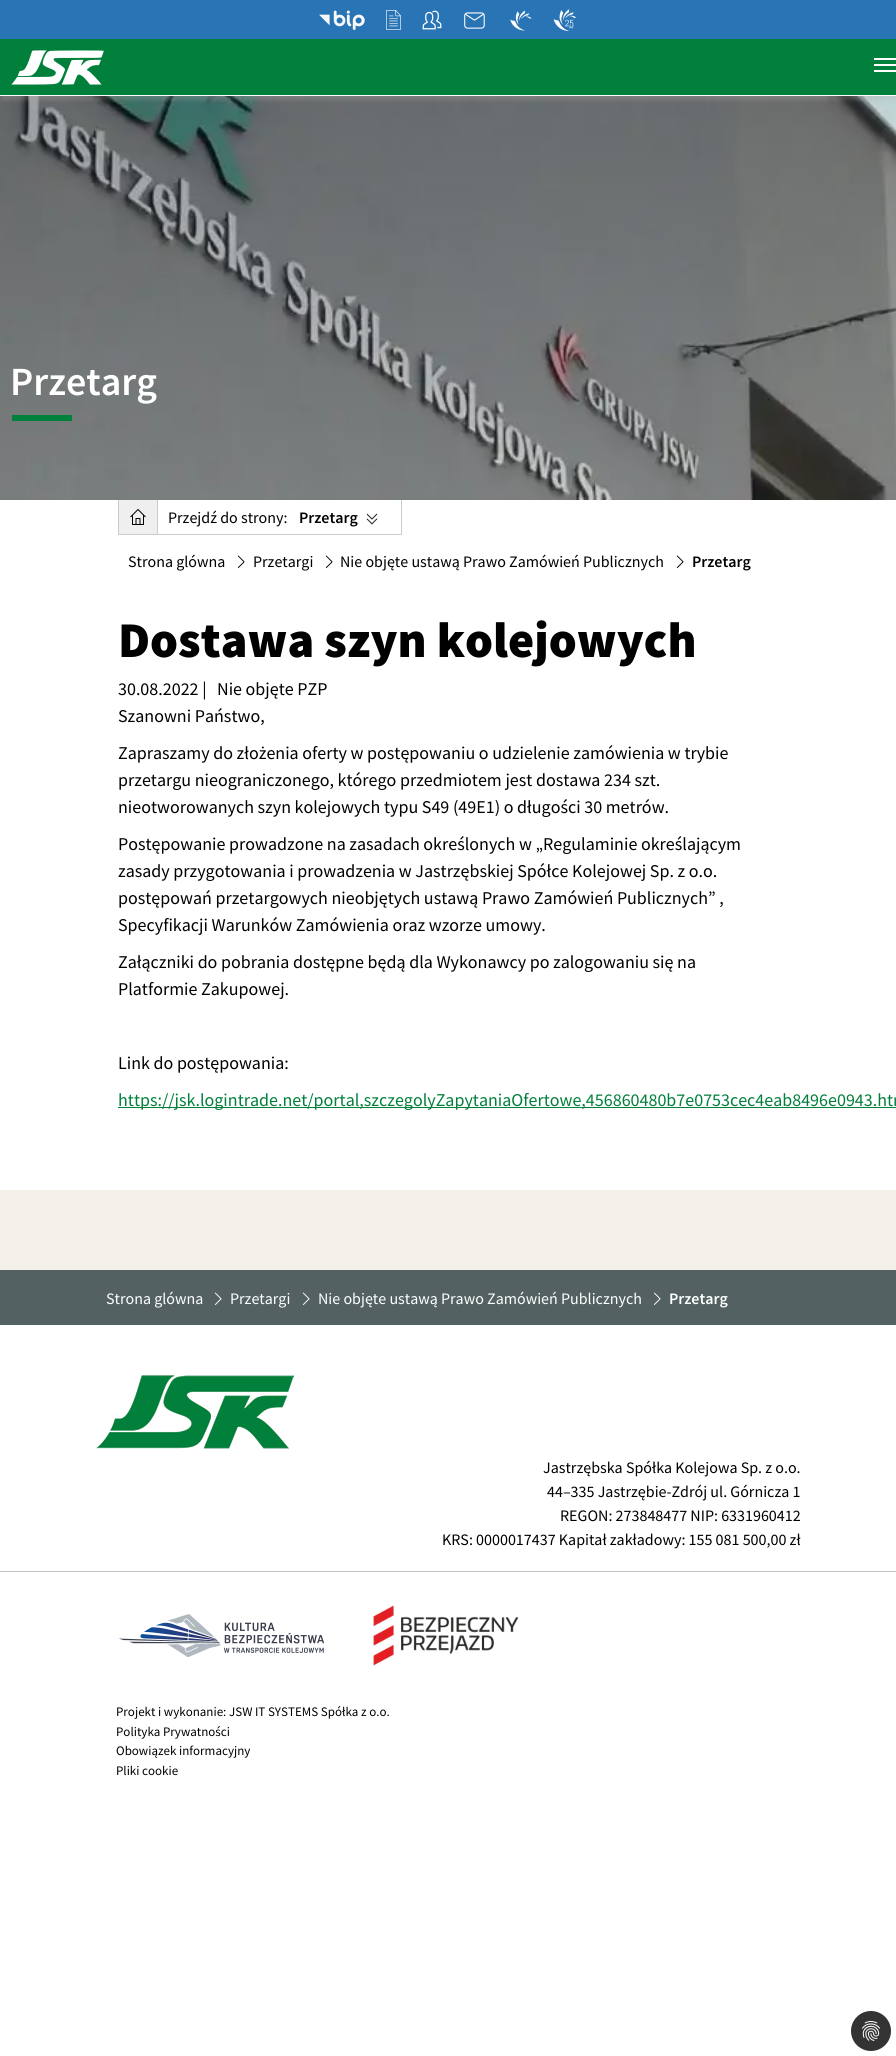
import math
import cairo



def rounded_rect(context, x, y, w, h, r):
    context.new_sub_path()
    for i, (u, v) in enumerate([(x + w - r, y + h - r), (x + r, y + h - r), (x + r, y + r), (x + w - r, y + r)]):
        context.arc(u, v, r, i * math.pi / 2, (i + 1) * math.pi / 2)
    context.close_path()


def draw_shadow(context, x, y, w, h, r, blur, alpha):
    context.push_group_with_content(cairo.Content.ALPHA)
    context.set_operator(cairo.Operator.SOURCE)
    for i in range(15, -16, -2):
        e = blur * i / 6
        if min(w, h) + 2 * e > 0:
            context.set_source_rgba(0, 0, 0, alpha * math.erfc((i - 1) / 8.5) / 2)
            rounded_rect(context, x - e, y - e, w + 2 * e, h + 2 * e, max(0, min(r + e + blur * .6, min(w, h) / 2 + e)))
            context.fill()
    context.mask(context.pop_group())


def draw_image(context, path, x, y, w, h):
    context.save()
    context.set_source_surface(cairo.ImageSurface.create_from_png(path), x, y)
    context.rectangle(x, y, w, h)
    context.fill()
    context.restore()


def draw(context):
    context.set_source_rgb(1, 1, 1)
    context.paint()
    draw_image(context, "images/8.png", 0, 96, 896, 404)
    context.set_source_rgb(184 / 255, 178 / 255, 178 / 255)
    draw_shadow(context, 2, 4, 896, 96, 0, 2, 0.25)
    context.set_source_rgb(1 / 255, 128 / 255, 59 / 255)
    context.rectangle(0, 39, 896, 56)
    context.fill()
    context.set_source_rgb(1, 1, 1)
    context.rectangle(0, 95, 896, 1)
    context.fill()
    context.set_source_rgb(40 / 255, 116 / 255, 181 / 255)
    context.rectangle(0, 0, 896, 39)
    context.fill()
    draw_image(context, "images/1.png", 319, 10, 46, 20)
    draw_image(context, "images/2.png", 386, 10, 15, 20)
    draw_image(context, "images/3.png", 422, 10, 20, 20)
    draw_image(context, "images/4.png", 464, 12, 21, 17)
    draw_image(context, "images/5.png", 510, 10, 22, 21)
    draw_image(context, "images/6.png", 553, 9, 23, 22)
    draw_image(context, "images/7.png", 11, 50, 93, 35)
    context.set_source_rgb(1, 1, 1)
    context.rectangle(874, 58, 22, 2)
    context.fill()
    context.rectangle(874, 64, 22, 2)
    context.fill()
    context.rectangle(874, 70, 22, 2)
    context.fill()
    context.set_source_rgb(1 / 255, 128 / 255, 59 / 255)
    context.rectangle(12, 415, 60, 6)
    context.fill()
    context.set_source_rgb(239 / 255, 239 / 255, 239 / 255)
    context.rectangle(119, 500, 38, 34)
    context.fill()
    context.set_source_rgb(204 / 255, 204 / 255, 204 / 255)
    context.rectangle(118, 534, 171, 1)
    context.fill()
    context.rectangle(118, 500, 1, 35)
    context.fill()
    draw_image(context, "images/9.png", 130, 509, 16, 16)
    context.rectangle(157, 500, 1, 35)
    context.fill()
    context.rectangle(401, 500, 1, 35)
    context.fill()
    context.rectangle(289, 534, 113, 1)
    context.fill()
    draw_image(context, "images/10.png", 366, 513, 12, 12)
    draw_image(context, "images/11.png", 237, 555, 8, 13)
    draw_image(context, "images/11.png", 325, 555, 8, 13)
    draw_image(context, "images/11.png", 676, 555, 8, 13)
    context.set_source_rgb(1 / 255, 128 / 255, 59 / 255)
    context.rectangle(118, 1107, 778, 1)
    context.fill()
    context.set_source_rgb(242 / 255, 240 / 255, 233 / 255)
    context.rectangle(0, 1190, 896, 80)
    context.fill()
    context.set_source_rgb(83 / 255, 97 / 255, 98 / 255)
    context.rectangle(0, 1270, 896, 55)
    context.fill()
    draw_image(context, "images/12.png", 214, 1292, 8, 13)
    draw_image(context, "images/12.png", 302, 1292, 8, 13)
    draw_image(context, "images/12.png", 653, 1292, 8, 13)
    draw_image(context, "images/13.png", 96, 1375, 198, 74)
    context.set_source_rgb(191 / 255, 191 / 255, 191 / 255)
    context.rectangle(0, 1571, 896, 1)
    context.fill()
    draw_image(context, "images/14.png", 119, 1614, 206, 43)
    draw_image(context, "images/15.png", 373, 1605, 146, 61)
    context.set_source_rgb(51 / 255, 51 / 255, 51 / 255)
    context.arc(871, 2031, 20, 0, 2 * math.pi)
    context.fill()
    draw_image(context, "images/16.png", 862, 2021, 18, 20)
    context.select_font_face("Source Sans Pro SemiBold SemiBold")
    context.set_font_size(40)
    context.set_source_rgb(1, 1, 1)
    context.move_to(10, 395)
    context.show_text("Przetarg")
    context.select_font_face("Source Sans Pro")
    context.set_font_size(16)
    context.set_source_rgb(0, 0, 0)
    context.move_to(168, 523)
    context.show_text("Przejdź do strony:")
    context.select_font_face("Source Sans Pro SemiBold SemiBold")
    context.move_to(299, 523)
    context.show_text("Przetarg")
    context.select_font_face("Source Sans Pro")
    context.move_to(128, 567)
    context.show_text("Strona glówna")
    context.move_to(253, 567)
    context.show_text("Przetargi")
    context.move_to(340, 567)
    context.show_text("Nie objęte ustawą Prawo Zamówień Publicznych")
    context.select_font_face("Source Sans Pro SemiBold SemiBold")
    context.move_to(692, 567)
    context.show_text("Przetarg")
    context.select_font_face("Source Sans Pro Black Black")
    context.set_font_size(50)
    context.move_to(118, 657)
    context.show_text("Dostawa szyn kolejowych")
    context.select_font_face("Source Sans Pro")
    context.set_font_size(18)
    context.move_to(118, 695)
    context.show_text("30.08.2022 |")
    context.move_to(217, 695)
    context.show_text("Nie objęte PZP")
    context.move_to(118, 722)
    context.show_text("Szanowni Państwo,")
    context.move_to(118, 759)
    context.show_text("Zapraszamy do złożenia oferty w postępowaniu o udzielenie zamówienia w trybie")
    context.move_to(118, 786)
    context.show_text("przetargu nieograniczonego, którego przedmiotem jest dostawa 234 szt.")
    context.move_to(118, 813)
    context.show_text("nieotworowanych szyn kolejowych typu S49 (49E1) o długości 30 metrów.")
    context.move_to(118, 850)
    context.show_text("Postępowanie prowadzone na zasadach określonych w „Regulaminie określającym")
    context.move_to(118, 877)
    context.show_text("zasady przygotowania i prowadzenia w Jastrzębskiej Spółce Kolejowej Sp. z o.o.")
    context.move_to(118, 904)
    context.show_text("postępowań przetargowych nieobjętych ustawą Prawo Zamówień Publicznych” ,")
    context.move_to(118, 931)
    context.show_text("Specyfikacji Warunków Zamówienia oraz wzorze umowy.")
    context.move_to(118, 968)
    context.show_text("Załączniki do pobrania dostępne będą dla Wykonawcy po zalogowaniu się na")
    context.move_to(118, 995)
    context.show_text("Platformie Zakupowej.")
    context.move_to(118, 1069)
    context.show_text("Link do postępowania:")
    context.set_source_rgb(1 / 255, 128 / 255, 59 / 255)
    context.move_to(118, 1106)
    context.show_text("https://jsk.logintrade.net/portal,szczegolyZapytaniaOfertowe,456860480b7e0753cec4eab8496e0943.htm")
    context.set_font_size(16)
    context.set_source_rgb(1, 1, 1)
    context.move_to(106, 1304)
    context.show_text("Strona glówna")
    context.move_to(230, 1304)
    context.show_text("Przetargi")
    context.move_to(318, 1304)
    context.show_text("Nie objęte ustawą Prawo Zamówień Publicznych")
    context.select_font_face("Source Sans Pro SemiBold SemiBold")
    context.move_to(669, 1304)
    context.show_text("Przetarg")
    context.select_font_face("Source Sans Pro")
    context.set_source_rgb(0, 0, 0)
    context.move_to(543, 1473)
    context.show_text("Jastrzębska Spółka Kolejowa Sp. z o.o.")
    context.move_to(547, 1497)
    context.show_text("44–335 Jastrzębie-Zdrój ul. Górnicza 1")
    context.move_to(560, 1521)
    context.show_text("REGON: 273848477 NIP: 6331960412")
    context.move_to(442, 1545)
    context.show_text("KRS: 0000017437 Kapitał zakładowy: 155 081 500,00 zł")
    context.set_font_size(13)
    context.move_to(116, 1716)
    context.show_text("Projekt i wykonanie: JSW IT SYSTEMS Spółka z o.o.")
    context.move_to(116, 1736)
    context.show_text("Polityka Prywatności")
    context.move_to(116, 1755)
    context.show_text("Obowiązek informacyjny")
    context.move_to(116, 1775)
    context.show_text("Pliki cookie")


surface = cairo.ImageSurface(cairo.Format.RGB24, 896, 2056)
context = cairo.Context(surface)
options = cairo.FontOptions()
options.set_hint_metrics(cairo.HintMetrics.OFF)
options.set_hint_style(cairo.HintStyle.NONE)
context.set_font_options(options)
context.set_miter_limit(4)
draw(context)
surface.write_to_png("out.png")
